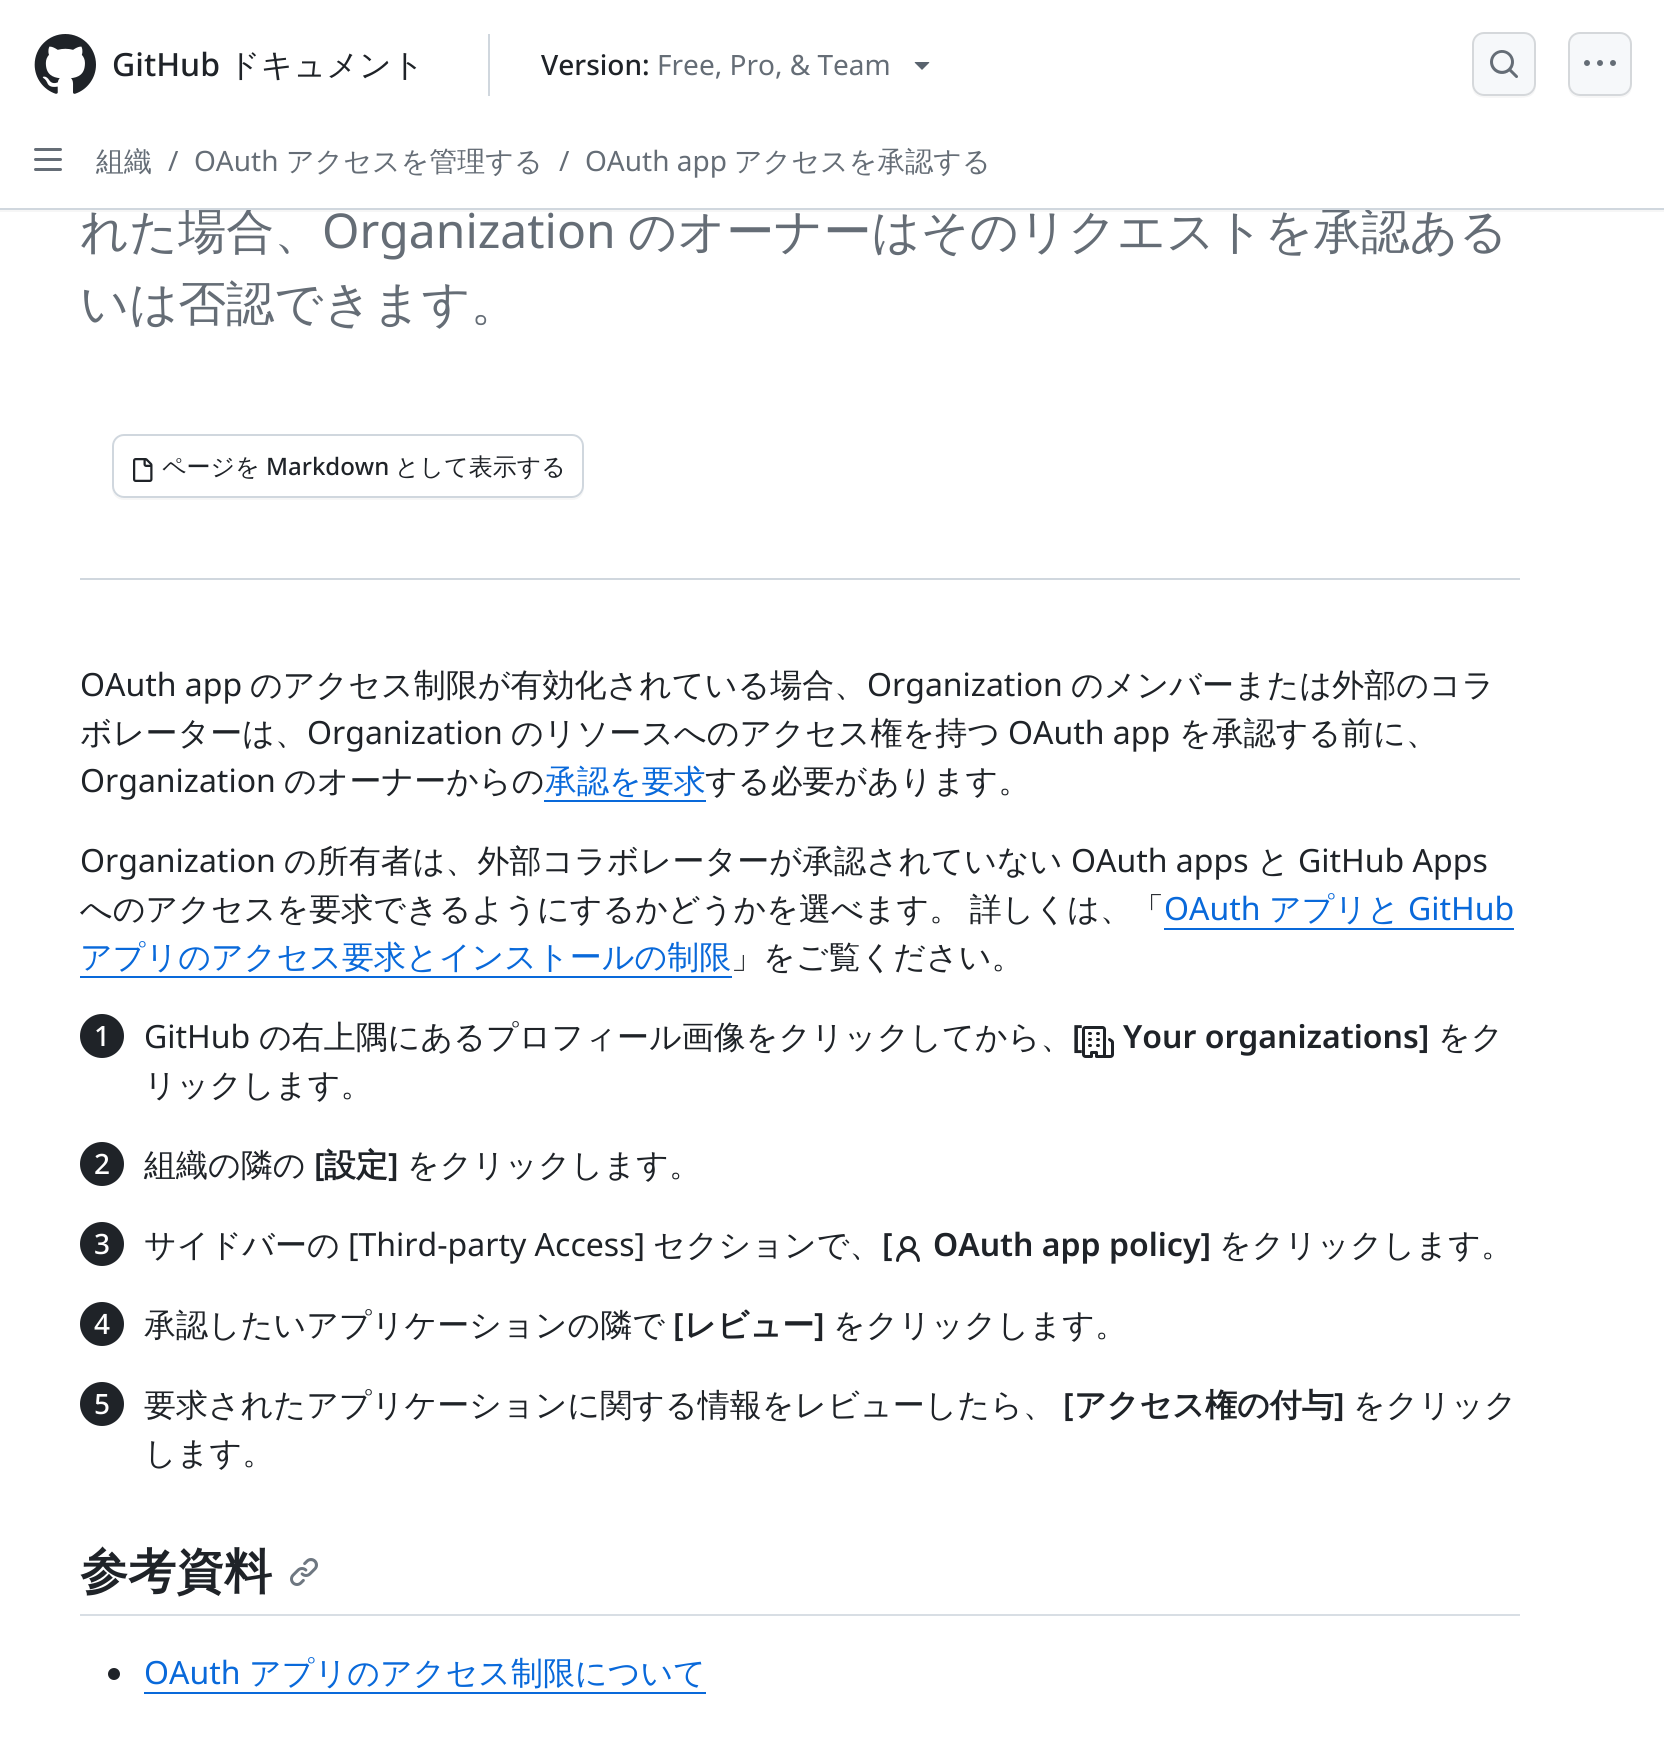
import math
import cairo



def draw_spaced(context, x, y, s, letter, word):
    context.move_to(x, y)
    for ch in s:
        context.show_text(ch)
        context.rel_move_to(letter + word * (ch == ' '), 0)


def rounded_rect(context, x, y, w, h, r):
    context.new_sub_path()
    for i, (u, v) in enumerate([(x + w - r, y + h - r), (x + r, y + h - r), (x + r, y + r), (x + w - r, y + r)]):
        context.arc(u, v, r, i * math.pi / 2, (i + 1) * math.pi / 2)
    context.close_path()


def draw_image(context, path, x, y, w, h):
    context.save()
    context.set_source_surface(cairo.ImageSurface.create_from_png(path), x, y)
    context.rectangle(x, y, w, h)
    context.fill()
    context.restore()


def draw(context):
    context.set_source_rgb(1, 1, 1)
    context.paint()
    context.set_source_rgba(31 / 255, 35 / 255, 40 / 255, 0.04)
    context.rectangle(0, 210, 1664, 2)
    context.fill()
    draw_image(context, "images/1.png", 34, 34, 62, 60)
    context.set_source_rgb(208 / 255, 215 / 255, 222 / 255)
    context.rectangle(488, 34, 2, 62)
    context.fill()
    draw_image(context, "images/2.png", 914, 62, 16, 8)
    context.set_source_rgb(246 / 255, 246 / 255, 246 / 255)
    context.new_path()
    context.move_to(1472, 84)
    context.curve_to(1472, 97, 1480, 98, 1491, 98)
    context.line_to(1517, 98)
    context.curve_to(1528, 98, 1536, 97, 1536, 84)
    context.curve_to(1536, 91, 1531, 96, 1524, 96)
    context.line_to(1484, 96)
    context.curve_to(1477, 96, 1472, 91, 1472, 84)
    context.close_path()
    context.fill()
    context.set_source_rgb(246 / 255, 248 / 255, 250 / 255)
    rounded_rect(context, 1472, 32, 64, 64, 12)
    context.fill()
    rounded_rect(context, 1473, 33, 62, 62, 11)
    context.set_source_rgba(31 / 255, 35 / 255, 40 / 255, 0.15)
    context.stroke()
    draw_image(context, "images/3.png", 1490, 50, 28, 28)
    context.set_source_rgb(246 / 255, 246 / 255, 246 / 255)
    context.new_path()
    context.move_to(1568, 84)
    context.curve_to(1568, 97, 1576, 98, 1587, 98)
    context.line_to(1613, 98)
    context.curve_to(1624, 98, 1632, 97, 1632, 84)
    context.curve_to(1632, 91, 1627, 96, 1620, 96)
    context.line_to(1580, 96)
    context.curve_to(1573, 96, 1568, 91, 1568, 84)
    context.close_path()
    context.fill()
    context.set_source_rgb(246 / 255, 248 / 255, 250 / 255)
    rounded_rect(context, 1568, 32, 64, 64, 12)
    context.fill()
    rounded_rect(context, 1569, 33, 62, 62, 11)
    context.set_source_rgba(31 / 255, 35 / 255, 40 / 255, 0.15)
    context.stroke()
    draw_image(context, "images/4.png", 1584, 60, 32, 6)
    draw_image(context, "images/5.png", 34, 148, 28, 23)
    context.set_source_rgb(208 / 255, 215 / 255, 222 / 255)
    context.rectangle(80, 578, 1440, 2)
    context.fill()
    context.set_source_rgb(246 / 255, 246 / 255, 246 / 255)
    context.new_path()
    context.move_to(112, 486)
    context.line_to(112, 488)
    context.curve_to(112, 495, 117, 500, 124, 500)
    context.line_to(572, 500)
    context.curve_to(579, 500, 584, 495, 584, 488)
    context.line_to(584, 486)
    context.curve_to(584, 493, 579, 498, 572, 498)
    context.line_to(124, 498)
    context.curve_to(117, 498, 112, 493, 112, 486)
    context.close_path()
    context.fill()
    rounded_rect(context, 113, 435, 470, 62, 11)
    context.set_source_rgb(208 / 255, 215 / 255, 222 / 255)
    context.stroke()
    draw_image(context, "images/6.png", 133, 458, 20, 24)
    context.set_source_rgb(9 / 255, 105 / 255, 218 / 255)
    context.rectangle(544, 800, 162, 2)
    context.fill()
    context.rectangle(1164, 928, 350, 2)
    context.fill()
    context.rectangle(80, 976, 652, 2)
    context.fill()
    context.set_source_rgb(31 / 255, 35 / 255, 40 / 255)
    context.arc(102, 1036, 22, 0, 2 * math.pi)
    context.fill()
    draw_image(context, "images/7.png", 1082, 1026, 32, 32)
    context.arc(102, 1164, 22, 0, 2 * math.pi)
    context.fill()
    context.arc(102, 1244, 22, 0, 2 * math.pi)
    context.fill()
    draw_image(context, "images/8.png", 896, 1236, 24, 26)
    context.arc(102, 1324, 22, 0, 2 * math.pi)
    context.fill()
    context.arc(102, 1404, 22, 0, 2 * math.pi)
    context.fill()
    context.set_source_rgb(216 / 255, 222 / 255, 228 / 255)
    context.rectangle(80, 1614, 1440, 2)
    context.fill()
    draw_image(context, "images/9.png", 290, 1558, 28, 28)
    context.set_source_rgb(31 / 255, 35 / 255, 40 / 255)
    context.arc(114, 1674, 6, 0, 2 * math.pi)
    context.fill()
    context.set_source_rgb(9 / 255, 105 / 255, 218 / 255)
    context.rectangle(144, 1692, 562, 2)
    context.fill()
    context.select_font_face("Noto Sans Medium")
    context.set_font_size(32)
    context.set_source_rgb(31 / 255, 35 / 255, 40 / 255)
    context.move_to(112, 76)
    context.show_text("GitHub")
    context.select_font_face("WenQuanYi Zen Hei Medium")
    context.move_to(228, 76)
    context.show_text("ドキュメント")
    context.select_font_face("Noto Sans Medium")
    context.set_font_size(28)
    context.move_to(541, 75)
    context.show_text("Version:")
    context.select_font_face("Noto Sans")
    context.set_source_rgb(101 / 255, 109 / 255, 118 / 255)
    context.move_to(657, 75)
    context.show_text("Free, Pro, & Team")
    context.select_font_face("WenQuanYi Zen Hei Medium")
    context.move_to(96, 171)
    context.show_text("組織")
    context.select_font_face("Noto Sans")
    context.move_to(168, 171)
    context.show_text("/")
    context.move_to(194, 171)
    context.show_text("OAuth")
    context.select_font_face("WenQuanYi Zen Hei Medium")
    context.move_to(286, 171)
    context.show_text("アクセスを管理する")
    context.select_font_face("Noto Sans")
    context.move_to(559, 171)
    context.show_text("/")
    context.move_to(585, 171)
    context.show_text("OAuth app")
    context.select_font_face("WenQuanYi Zen Hei Medium")
    context.move_to(734, 171)
    context.show_text("アクセスを承認する")
    context.set_font_size(48)
    context.move_to(80, 248)
    context.show_text("れた場合、")
    context.select_font_face("Noto Sans")
    context.move_to(322, 248)
    context.show_text("Organization")
    context.select_font_face("WenQuanYi Zen Hei Medium")
    context.move_to(628, 248)
    context.show_text("のオーナーはそのリクエストを承認ある")
    context.set_source_rgb(208 / 255, 215 / 255, 222 / 255)
    context.rectangle(0, 208, 1664, 2)
    context.fill()
    context.set_source_rgb(101 / 255, 109 / 255, 118 / 255)
    context.move_to(80, 320)
    context.show_text("いは否認できます。")
    context.set_font_size(24)
    context.set_source_rgb(31 / 255, 35 / 255, 40 / 255)
    context.move_to(162, 475)
    context.show_text("ページを")
    context.select_font_face("Noto Sans Medium")
    context.move_to(266, 475)
    context.show_text("Markdown")
    context.select_font_face("WenQuanYi Zen Hei Medium")
    context.move_to(395, 475)
    context.show_text("として表示する")
    context.select_font_face("Noto Sans")
    context.set_font_size(32)
    context.move_to(80, 696)
    context.show_text("OAuth app")
    context.select_font_face("WenQuanYi Zen Hei Medium")
    context.move_to(250, 696)
    context.show_text("のアクセス制限が有効化されている場合、")
    context.select_font_face("Noto Sans")
    context.move_to(867, 696)
    context.show_text("Organization")
    context.select_font_face("WenQuanYi Zen Hei Medium")
    context.move_to(1071, 696)
    context.show_text("のメンバーまたは外部のコラ")
    context.move_to(80, 744)
    context.show_text("ボレーターは、")
    context.select_font_face("Noto Sans")
    context.move_to(307, 744)
    context.show_text("Organization")
    context.select_font_face("WenQuanYi Zen Hei Medium")
    context.move_to(511, 744)
    context.show_text("のリソースへのアクセス権を持つ")
    context.select_font_face("Noto Sans")
    context.move_to(1008, 744)
    context.show_text("OAuth app")
    context.select_font_face("WenQuanYi Zen Hei Medium")
    context.move_to(1179, 744)
    context.show_text("を承認する前に、")
    context.select_font_face("Noto Sans")
    context.move_to(80, 792)
    context.show_text("Organization")
    context.select_font_face("WenQuanYi Zen Hei Medium")
    context.move_to(284, 792)
    context.show_text("のオーナーからの")
    context.set_source_rgb(9 / 255, 105 / 255, 218 / 255)
    context.move_to(545, 792)
    context.show_text("承認を要求")
    context.set_source_rgb(31 / 255, 35 / 255, 40 / 255)
    context.move_to(705, 792)
    context.show_text("する必要があります。")
    context.select_font_face("Noto Sans")
    context.move_to(80, 872)
    context.show_text("Organization")
    context.select_font_face("WenQuanYi Zen Hei Medium")
    context.move_to(284, 872)
    context.show_text("の所有者は、外部コラボレーターが承認されていない")
    context.select_font_face("Noto Sans")
    context.move_to(1071, 872)
    context.show_text("OAuth apps")
    context.select_font_face("WenQuanYi Zen Hei Medium")
    context.move_to(1257, 872)
    context.show_text("と")
    context.select_font_face("Noto Sans")
    context.move_to(1298, 872)
    context.show_text("GitHub Apps")
    context.select_font_face("WenQuanYi Zen Hei Medium")
    draw_spaced(context, 80, 920, "へのアクセスを要求できるようにするかどうかを選べます。 詳しくは、「", 0, -1)
    context.select_font_face("Noto Sans")
    context.set_source_rgb(9 / 255, 105 / 255, 218 / 255)
    context.move_to(1164, 920)
    context.show_text("OAuth")
    context.select_font_face("WenQuanYi Zen Hei Medium")
    context.move_to(1269, 920)
    context.show_text("アプリと")
    context.select_font_face("Noto Sans")
    context.move_to(1408, 920)
    context.show_text("GitHub")
    context.select_font_face("WenQuanYi Zen Hei Medium")
    context.move_to(80, 968)
    context.show_text("アプリのアクセス要求とインストールの制限")
    context.set_source_rgb(31 / 255, 35 / 255, 40 / 255)
    context.move_to(731, 968)
    context.show_text("」をご覧ください。")
    context.select_font_face("Noto Sans Medium")
    context.set_font_size(28)
    context.set_source_rgb(1, 1, 1)
    context.move_to(94, 1046)
    context.show_text("1")
    context.select_font_face("Noto Sans")
    context.set_font_size(32)
    context.set_source_rgb(31 / 255, 35 / 255, 40 / 255)
    context.move_to(144, 1048)
    context.show_text("GitHub")
    context.select_font_face("WenQuanYi Zen Hei Medium")
    context.move_to(259, 1048)
    context.show_text("の右上隅にあるプロフィール画像をクリックしてから、")
    context.select_font_face("Noto Sans SemiBold")
    context.move_to(1072, 1048)
    context.show_text("[")
    context.move_to(1123, 1048)
    context.show_text("Your organizations]")
    context.select_font_face("WenQuanYi Zen Hei Medium")
    context.move_to(1438, 1048)
    context.show_text("をク")
    context.move_to(144, 1096)
    context.show_text("リックします。")
    context.select_font_face("Noto Sans Medium")
    context.set_font_size(28)
    context.set_source_rgb(1, 1, 1)
    context.move_to(94, 1174)
    context.show_text("2")
    context.select_font_face("WenQuanYi Zen Hei Medium")
    context.set_font_size(32)
    context.set_source_rgb(31 / 255, 35 / 255, 40 / 255)
    context.move_to(144, 1176)
    context.show_text("組織の隣の")
    context.select_font_face("Noto Sans SemiBold")
    context.move_to(314, 1176)
    context.show_text("[")
    context.select_font_face("WenQuanYi Zen Hei", cairo.FontSlant.NORMAL, cairo.FontWeight.BOLD)
    context.move_to(324, 1176)
    context.show_text("設定")
    context.select_font_face("Noto Sans SemiBold")
    context.move_to(388, 1176)
    context.show_text("]")
    context.select_font_face("WenQuanYi Zen Hei Medium")
    context.move_to(407, 1176)
    context.show_text("をクリックします。")
    context.select_font_face("Noto Sans Medium")
    context.set_font_size(28)
    context.set_source_rgb(1, 1, 1)
    context.move_to(94, 1254)
    context.show_text("3")
    context.select_font_face("WenQuanYi Zen Hei Medium")
    context.set_font_size(32)
    context.set_source_rgb(31 / 255, 35 / 255, 40 / 255)
    context.move_to(144, 1256)
    context.show_text("サイドバーの")
    context.select_font_face("Noto Sans")
    context.move_to(348, 1256)
    context.show_text("[Third-party Access]")
    context.select_font_face("WenQuanYi Zen Hei Medium")
    context.move_to(653, 1256)
    context.show_text("セクションで、")
    context.select_font_face("Noto Sans SemiBold")
    context.move_to(882, 1256)
    context.show_text("[")
    context.move_to(933, 1256)
    context.show_text("OAuth app policy]")
    context.select_font_face("WenQuanYi Zen Hei Medium")
    context.move_to(1219, 1256)
    context.show_text("をクリックします。")
    context.select_font_face("Noto Sans Medium")
    context.set_font_size(28)
    context.set_source_rgb(1, 1, 1)
    context.move_to(94, 1334)
    context.show_text("4")
    context.select_font_face("WenQuanYi Zen Hei Medium")
    context.set_font_size(32)
    context.set_source_rgb(31 / 255, 35 / 255, 40 / 255)
    context.move_to(144, 1336)
    context.show_text("承認したいアプリケーションの隣で")
    context.select_font_face("Noto Sans SemiBold")
    context.move_to(673, 1336)
    context.show_text("[")
    context.select_font_face("WenQuanYi Zen Hei", cairo.FontSlant.NORMAL, cairo.FontWeight.BOLD)
    context.move_to(684, 1336)
    context.show_text("レビュー")
    context.select_font_face("Noto Sans SemiBold")
    context.move_to(814, 1336)
    context.show_text("]")
    context.select_font_face("WenQuanYi Zen Hei Medium")
    context.move_to(833, 1336)
    context.show_text("をクリックします。")
    context.select_font_face("Noto Sans Medium")
    context.set_font_size(28)
    context.set_source_rgb(1, 1, 1)
    context.move_to(94, 1414)
    context.show_text("5")
    context.select_font_face("WenQuanYi Zen Hei Medium")
    context.set_font_size(32)
    context.set_source_rgb(31 / 255, 35 / 255, 40 / 255)
    context.move_to(144, 1416)
    context.show_text("要求されたアプリケーションに関する情報をレビューしたら、")
    context.select_font_face("Noto Sans SemiBold")
    context.move_to(1063, 1416)
    context.show_text("[")
    context.select_font_face("WenQuanYi Zen Hei", cairo.FontSlant.NORMAL, cairo.FontWeight.BOLD)
    context.move_to(1074, 1416)
    context.show_text("アクセス権の付与")
    context.select_font_face("Noto Sans SemiBold")
    context.move_to(1334, 1416)
    context.show_text("]")
    context.select_font_face("WenQuanYi Zen Hei Medium")
    context.move_to(1353, 1416)
    context.show_text("をクリック")
    context.move_to(144, 1464)
    context.show_text("します。")
    context.select_font_face("WenQuanYi Zen Hei", cairo.FontSlant.NORMAL, cairo.FontWeight.BOLD)
    context.set_font_size(48)
    context.move_to(80, 1588)
    context.show_text("参考資料")
    context.select_font_face("Noto Sans")
    context.set_font_size(32)
    context.set_source_rgb(9 / 255, 105 / 255, 218 / 255)
    context.move_to(144, 1684)
    context.show_text("OAuth")
    context.select_font_face("WenQuanYi Zen Hei Medium")
    context.move_to(249, 1684)
    context.show_text("アプリのアクセス制限について")


surface = cairo.ImageSurface(cairo.Format.RGB24, 1664, 1754)
context = cairo.Context(surface)
options = cairo.FontOptions()
options.set_hint_metrics(cairo.HintMetrics.OFF)
options.set_hint_style(cairo.HintStyle.NONE)
context.set_font_options(options)
context.set_miter_limit(4)
draw(context)
surface.write_to_png("out.png")
